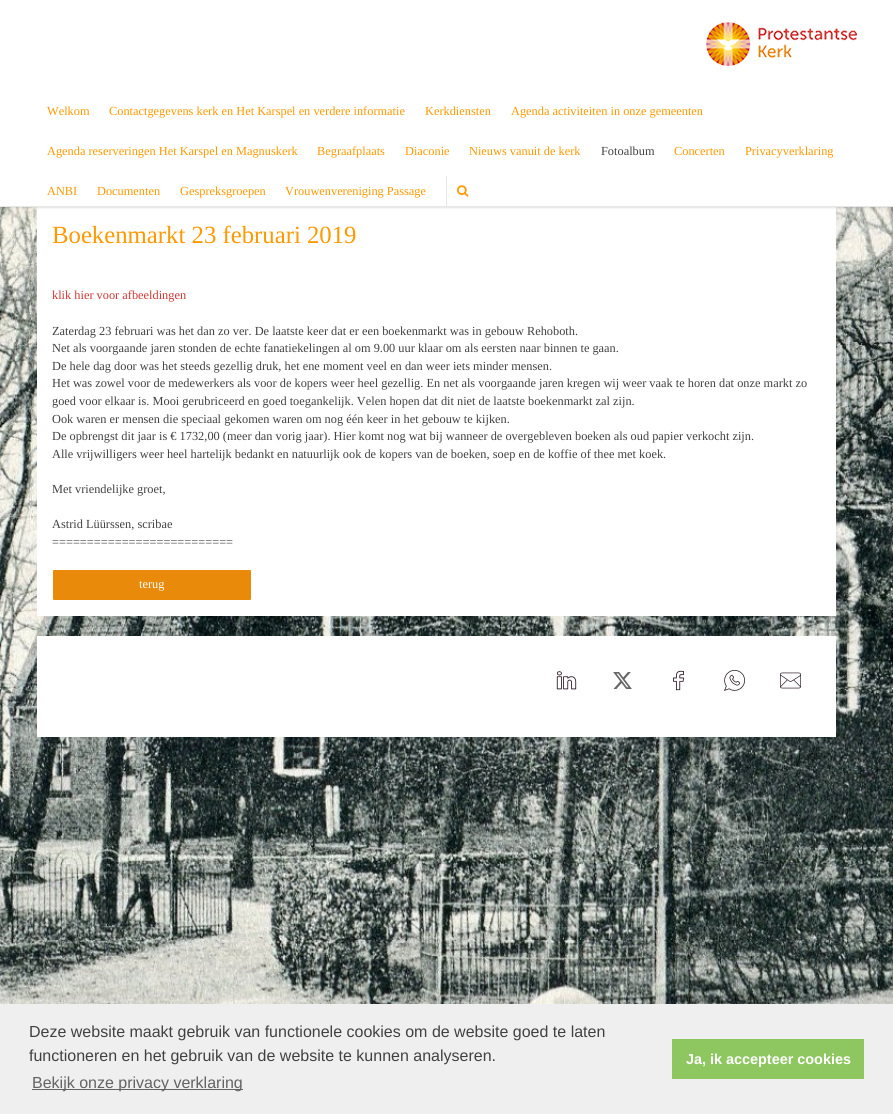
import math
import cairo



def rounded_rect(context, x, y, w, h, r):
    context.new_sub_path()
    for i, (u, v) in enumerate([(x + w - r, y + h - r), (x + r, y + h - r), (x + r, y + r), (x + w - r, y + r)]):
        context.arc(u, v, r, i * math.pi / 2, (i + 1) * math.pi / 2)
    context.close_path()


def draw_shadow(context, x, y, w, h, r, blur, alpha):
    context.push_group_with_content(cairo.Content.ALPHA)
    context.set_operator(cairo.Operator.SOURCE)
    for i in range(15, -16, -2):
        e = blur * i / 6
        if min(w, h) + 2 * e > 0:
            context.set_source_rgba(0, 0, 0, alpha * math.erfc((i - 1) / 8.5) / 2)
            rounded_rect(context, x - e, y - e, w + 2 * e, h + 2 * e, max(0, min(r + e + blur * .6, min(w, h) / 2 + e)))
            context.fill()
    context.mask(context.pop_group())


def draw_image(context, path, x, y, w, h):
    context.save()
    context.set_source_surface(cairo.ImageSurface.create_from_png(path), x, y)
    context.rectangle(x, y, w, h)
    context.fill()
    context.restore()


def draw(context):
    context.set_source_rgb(1, 1, 1)
    context.paint()
    draw_image(context, "images/1.png", 0, 207, 893, 797)
    context.set_source_rgb(1, 1, 1)
    context.rectangle(37, 207, 799, 409)
    context.fill()
    context.set_source_rgb(0, 0, 0)
    draw_shadow(context, 0, 0, 893, 207, 0, 1.5, 0.22)
    context.set_source_rgb(1, 1, 1)
    context.rectangle(0, 0, 893, 206)
    context.fill()
    context.set_source_rgb(231 / 255, 231 / 255, 231 / 255)
    context.rectangle(0, 206, 893, 1)
    context.fill()
    draw_image(context, "images/2.png", 706, 22, 151, 44)
    context.rectangle(446, 176, 1, 30)
    context.fill()
    draw_image(context, "images/3.png", 457, 185, 12, 12)
    context.set_source_rgb(234 / 255, 138 / 255, 10 / 255)
    rounded_rect(context, 52.5, 569.5, 199, 31, 1.5)
    context.fill_preserve()
    context.set_source_rgb(1, 1, 1)
    context.set_line_width(1)
    context.stroke()
    context.rectangle(37, 636, 799, 101)
    context.fill()
    draw_image(context, "images/4.png", 556, 671, 21, 19)
    draw_image(context, "images/5.png", 613, 672, 19, 17)
    draw_image(context, "images/6.png", 673, 670, 11, 21)
    draw_image(context, "images/7.png", 724, 670, 21, 21)
    draw_image(context, "images/8.png", 780, 672, 21, 17)
    context.set_source_rgb(239 / 255, 239 / 255, 239 / 255)
    context.rectangle(0, 1004, 893, 110)
    context.fill()
    context.set_source_rgb(99 / 255, 99 / 255, 99 / 255)
    context.rectangle(32, 1089, 211, 1)
    context.fill()
    context.set_source_rgb(142 / 255, 199 / 255, 96 / 255)
    context.rectangle(672, 1039, 192, 40)
    context.fill()
    context.select_font_face("Liberation Serif")
    context.set_font_size(12.35)
    context.set_source_rgb(1, 153 / 255, 0)
    context.move_to(47, 115)
    context.show_text("Welkom")
    context.move_to(109, 115)
    context.show_text("Contactgegevens kerk en Het Karspel en verdere informatie")
    context.move_to(425, 115)
    context.show_text("Kerkdiensten")
    context.move_to(511, 115)
    context.show_text("Agenda activiteiten in onze gemeenten")
    context.move_to(47, 155)
    context.show_text("Agenda reserveringen Het Karspel en Magnuskerk")
    context.move_to(317, 155)
    context.show_text("Begraafplaats")
    context.move_to(405, 155)
    context.show_text("Diaconie")
    context.move_to(469, 155)
    context.show_text("Nieuws vanuit de kerk")
    context.set_source_rgb(65 / 255, 65 / 255, 65 / 255)
    context.move_to(601, 155)
    context.show_text("Fotoalbum")
    context.set_source_rgb(1, 153 / 255, 0)
    context.move_to(674, 155)
    context.show_text("Concerten")
    context.move_to(745, 155)
    context.show_text("Privacyverklaring")
    context.move_to(47, 195)
    context.show_text("ANBI")
    context.move_to(97, 195)
    context.show_text("Documenten")
    context.move_to(180, 195)
    context.show_text("Gespreksgroepen")
    context.move_to(285, 195)
    context.show_text("Vrouwenvereniging Passage")
    context.set_font_size(24.75)
    context.move_to(52, 243)
    context.show_text("Boekenmarkt 23 februari 2019")
    context.set_font_size(12.35)
    context.set_source_rgb(208 / 255, 55 / 255, 53 / 255)
    context.move_to(52, 299)
    context.show_text("klik hier voor afbeeldingen")
    context.set_source_rgb(65 / 255, 65 / 255, 65 / 255)
    context.move_to(52, 335)
    context.show_text("Zaterdag 23 februari was het dan zo ver. De laatste keer dat er een boekenmarkt was in gebouw Rehoboth.")
    context.move_to(52, 352)
    context.show_text("Net als voorgaande jaren stonden de echte fanatiekelingen al om 9.00 uur klaar om als eersten naar binnen te gaan.")
    context.move_to(52, 370)
    context.show_text("De hele dag door was het steeds gezellig druk, het ene moment veel en dan weer iets minder mensen.")
    context.move_to(52, 387)
    context.show_text("Het was zowel voor de medewerkers als voor de kopers weer heel gezellig. En net als voorgaande jaren kregen wij weer vaak te horen dat onze markt zo")
    context.move_to(52, 405)
    context.show_text("goed voor elkaar is. Mooi gerubriceerd en goed toegankelijk. Velen hopen dat dit niet de laatste boekenmarkt zal zijn.")
    context.move_to(52, 423)
    context.show_text("Ook waren er mensen die speciaal gekomen waren om nog één keer in het gebouw te kijken.")
    context.move_to(52, 440)
    context.show_text("De opbrengst dit jaar is € 1732,00 (meer dan vorig jaar). Hier komt nog wat bij wanneer de overgebleven boeken als oud papier verkocht zijn.")
    context.move_to(52, 458)
    context.show_text("Alle vrijwilligers weer heel hartelijk bedankt en natuurlijk ook de kopers van de boeken, soep en de koffie of thee met koek.")
    context.move_to(52, 493)
    context.show_text("Met vriendelijke groet,")
    context.move_to(52, 528)
    context.show_text("Astrid Lüürssen, scribae")
    context.move_to(52, 546)
    context.show_text("==========================")
    context.set_source_rgb(1, 1, 1)
    context.move_to(139, 588)
    context.show_text("terug")
    context.select_font_face("Liberation Sans")
    context.set_font_size(16)
    context.set_source_rgb(65 / 255, 65 / 255, 65 / 255)
    context.move_to(29, 1037)
    context.show_text("Deze website maakt gebruik van functionele cookies om de website goed te laten")
    context.move_to(29, 1061)
    context.show_text("functioneren en het gebruik van de website te kunnen analyseren.")
    context.set_source_rgb(99 / 255, 99 / 255, 99 / 255)
    context.move_to(32, 1088)
    context.show_text("Bekijk onze privacy verklaring")
    context.select_font_face("Liberation Sans", cairo.FontSlant.NORMAL, cairo.FontWeight.BOLD)
    context.set_font_size(14.4)
    context.set_source_rgb(1, 1, 1)
    context.move_to(686, 1064)
    context.show_text("Ja, ik accepteer cookies")


surface = cairo.ImageSurface(cairo.Format.RGB24, 893, 1114)
context = cairo.Context(surface)
options = cairo.FontOptions()
options.set_hint_metrics(cairo.HintMetrics.OFF)
options.set_hint_style(cairo.HintStyle.NONE)
context.set_font_options(options)
context.set_miter_limit(4)
draw(context)
surface.write_to_png("out.png")
